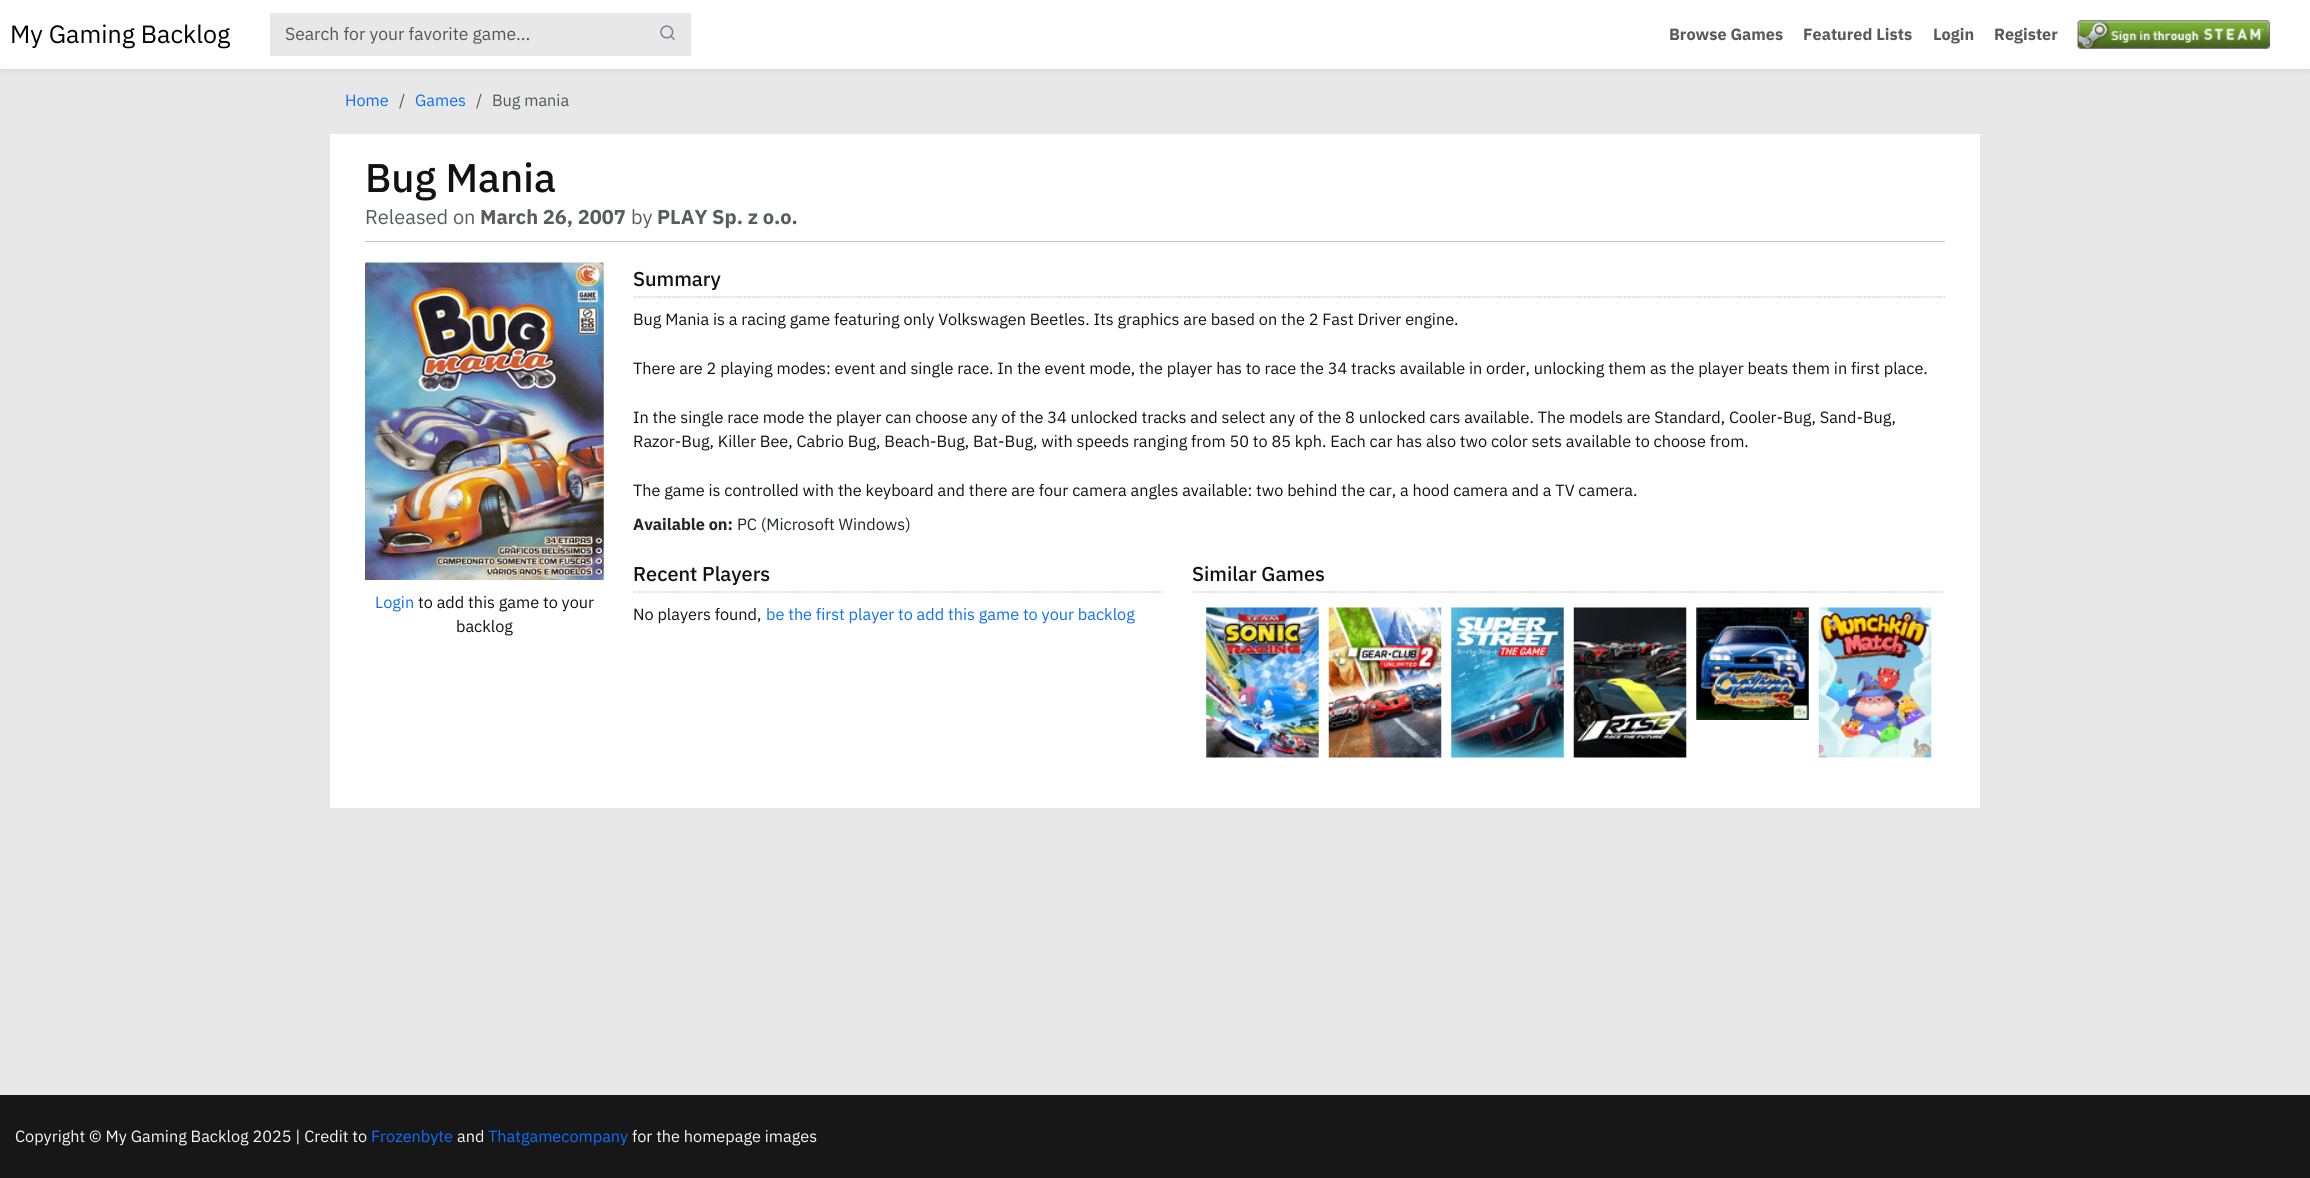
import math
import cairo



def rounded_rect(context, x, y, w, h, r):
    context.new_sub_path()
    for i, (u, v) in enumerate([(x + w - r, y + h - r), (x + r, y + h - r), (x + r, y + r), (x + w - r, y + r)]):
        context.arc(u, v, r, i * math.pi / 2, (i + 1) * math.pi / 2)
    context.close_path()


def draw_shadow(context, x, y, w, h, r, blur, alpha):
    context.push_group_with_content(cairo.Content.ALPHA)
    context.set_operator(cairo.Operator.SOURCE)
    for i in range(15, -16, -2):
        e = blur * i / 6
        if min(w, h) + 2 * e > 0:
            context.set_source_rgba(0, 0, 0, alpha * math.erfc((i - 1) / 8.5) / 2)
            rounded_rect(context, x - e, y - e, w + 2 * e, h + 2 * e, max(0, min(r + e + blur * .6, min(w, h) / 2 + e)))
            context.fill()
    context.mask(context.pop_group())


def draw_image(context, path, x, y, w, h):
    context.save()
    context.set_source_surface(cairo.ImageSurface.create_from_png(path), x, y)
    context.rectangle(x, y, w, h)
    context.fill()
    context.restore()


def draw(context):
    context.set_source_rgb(232 / 255, 232 / 255, 232 / 255)
    context.paint()
    context.set_source_rgb(0, 0, 0)
    draw_shadow(context, 0, 3, 2310, 68, 0, 2.5, 0.07)
    context.set_source_rgb(1, 1, 1)
    context.rectangle(0, 0, 2310, 69)
    context.fill()
    context.set_source_rgb(232 / 255, 232 / 255, 232 / 255)
    context.rectangle(270, 13, 421, 43)
    context.fill()
    draw_image(context, "images/1.png", 660, 25, 15, 15)
    draw_image(context, "images/2.png", 2077, 20, 193, 29)
    context.set_source_rgb(1, 1, 1)
    context.rectangle(330, 134, 1650, 674)
    context.fill()
    context.set_source_rgb(196 / 255, 196 / 255, 196 / 255)
    context.rectangle(365, 241, 1580, 1)
    context.fill()
    draw_image(context, "images/3.png", 365, 262, 239, 318)
    context.new_path()
    context.move_to(634, 297)
    context.line_to(1945, 297)
    context.set_source_rgb(190 / 255, 190 / 255, 190 / 255)
    context.set_line_width(1.2)
    context.set_dash([1.25, 1.25])
    context.stroke()
    context.new_path()
    context.move_to(634, 592)
    context.line_to(1162.5, 592)
    context.stroke()
    context.new_path()
    context.move_to(1192.5, 592)
    context.line_to(1945, 592)
    context.stroke()
    draw_image(context, "images/4.png", 1206, 607, 113, 151)
    draw_image(context, "images/5.png", 1328, 607, 114, 151)
    draw_image(context, "images/6.png", 1451, 607, 113, 151)
    draw_image(context, "images/7.png", 1573, 607, 114, 151)
    draw_image(context, "images/8.png", 1696, 607, 113, 113)
    draw_image(context, "images/9.png", 1818, 607, 114, 151)
    context.set_source_rgb(23 / 255, 23 / 255, 23 / 255)
    context.rectangle(0, 1095, 2310, 83)
    context.fill()
    context.select_font_face("IBM Plex Sans")
    context.set_font_size(25)
    context.set_source_rgb(0, 0, 0)
    context.move_to(10, 43)
    context.show_text("My Gaming Backlog")
    context.set_font_size(17.5)
    context.set_source_rgb(83 / 255, 86 / 255, 89 / 255)
    context.move_to(285, 40)
    context.show_text("Search for your favorite game...")
    context.select_font_face("IBM Plex Sans", cairo.FontSlant.NORMAL, cairo.FontWeight.BOLD)
    context.set_font_size(16.25)
    context.set_source_rgb(89 / 255, 89 / 255, 89 / 255)
    context.move_to(1669, 40)
    context.show_text("Browse Games")
    context.move_to(1803, 40)
    context.show_text("Featured Lists")
    context.move_to(1933, 40)
    context.show_text("Login")
    context.move_to(1994, 40)
    context.show_text("Register")
    context.select_font_face("IBM Plex Sans")
    context.set_source_rgb(13 / 255, 110 / 255, 253 / 255)
    context.move_to(345, 106)
    context.show_text("Home")
    context.set_source_rgb(83 / 255, 86 / 255, 89 / 255)
    context.move_to(399, 106)
    context.show_text("/")
    context.set_source_rgb(13 / 255, 110 / 255, 253 / 255)
    context.move_to(415, 106)
    context.show_text("Games")
    context.set_source_rgb(83 / 255, 86 / 255, 89 / 255)
    context.move_to(476, 106)
    context.show_text("/")
    context.move_to(492, 106)
    context.show_text("Bug mania")
    context.select_font_face("IBM Plex Sans Medium")
    context.set_font_size(40)
    context.set_source_rgb(18 / 255, 18 / 255, 18 / 255)
    context.move_to(365, 192)
    context.show_text("Bug Mania")
    context.select_font_face("IBM Plex Sans")
    context.set_font_size(20)
    context.set_source_rgb(89 / 255, 92 / 255, 95 / 255)
    context.move_to(365, 224)
    context.show_text("Released on")
    context.select_font_face("IBM Plex Sans", cairo.FontSlant.NORMAL, cairo.FontWeight.BOLD)
    context.move_to(480, 224)
    context.show_text("March 26, 2007")
    context.select_font_face("IBM Plex Sans")
    context.move_to(631, 224)
    context.show_text("by")
    context.select_font_face("IBM Plex Sans", cairo.FontSlant.NORMAL, cairo.FontWeight.BOLD)
    context.move_to(657, 224)
    context.show_text("PLAY Sp. z o.o.")
    context.select_font_face("IBM Plex Sans")
    context.set_font_size(16.25)
    context.set_source_rgb(13 / 255, 110 / 255, 253 / 255)
    context.move_to(375, 608)
    context.show_text("Login")
    context.set_source_rgb(18 / 255, 18 / 255, 18 / 255)
    context.move_to(418, 608)
    context.show_text("to add this game to your")
    context.move_to(456, 632)
    context.show_text("backlog")
    context.select_font_face("IBM Plex Sans Medium")
    context.set_font_size(20)
    context.move_to(633, 286)
    context.show_text("Summary")
    context.select_font_face("IBM Plex Sans")
    context.set_font_size(16.25)
    context.move_to(633, 325)
    context.show_text("Bug Mania is a racing game featuring only Volkswagen Beetles. Its graphics are based on the 2 Fast Driver engine.")
    context.move_to(633, 374)
    context.show_text("There are 2 playing modes: event and single race. In the event mode, the player has to race the 34 tracks available in order, unlocking them as the player beats them in first place.")
    context.move_to(633, 423)
    context.show_text("In the single race mode the player can choose any of the 34 unlocked tracks and select any of the 8 unlocked cars available. The models are Standard, Cooler-Bug, Sand-Bug,")
    context.move_to(633, 447)
    context.show_text("Razor-Bug, Killer Bee, Cabrio Bug, Beach-Bug, Bat-Bug, with speeds ranging from 50 to 85 kph. Each car has also two color sets available to choose from.")
    context.move_to(633, 496)
    context.show_text("The game is controlled with the keyboard and there are four camera angles available: two behind the car, a hood camera and a TV camera.")
    context.select_font_face("IBM Plex Sans", cairo.FontSlant.NORMAL, cairo.FontWeight.BOLD)
    context.set_source_rgb(33 / 255, 37 / 255, 41 / 255)
    context.move_to(633, 530)
    context.show_text("Available on:")
    context.select_font_face("IBM Plex Sans")
    context.move_to(737, 530)
    context.show_text("PC (Microsoft Windows)")
    context.select_font_face("IBM Plex Sans Medium")
    context.set_font_size(20)
    context.set_source_rgb(18 / 255, 18 / 255, 18 / 255)
    context.move_to(633, 581)
    context.show_text("Recent Players")
    context.select_font_face("IBM Plex Sans")
    context.set_font_size(16.25)
    context.move_to(633, 620)
    context.show_text("No players found,")
    context.set_source_rgb(13 / 255, 110 / 255, 253 / 255)
    context.move_to(766, 620)
    context.show_text("be the first player to add this game to your backlog")
    context.select_font_face("IBM Plex Sans Medium")
    context.set_font_size(20)
    context.set_source_rgb(18 / 255, 18 / 255, 18 / 255)
    context.move_to(1192, 581)
    context.show_text("Similar Games")
    context.select_font_face("IBM Plex Sans")
    context.set_font_size(16.25)
    context.set_source_rgb(248 / 255, 249 / 255, 250 / 255)
    context.move_to(15, 1142)
    context.show_text("Copyright © My Gaming Backlog 2025 | Credit to")
    context.set_source_rgb(13 / 255, 110 / 255, 253 / 255)
    context.move_to(371, 1142)
    context.show_text("Frozenbyte")
    context.set_source_rgb(248 / 255, 249 / 255, 250 / 255)
    context.move_to(457, 1142)
    context.show_text("and")
    context.set_source_rgb(13 / 255, 110 / 255, 253 / 255)
    context.move_to(488, 1142)
    context.show_text("Thatgamecompany")
    context.set_source_rgb(248 / 255, 249 / 255, 250 / 255)
    context.move_to(632, 1142)
    context.show_text("for the homepage images")


surface = cairo.ImageSurface(cairo.Format.RGB24, 2310, 1178)
context = cairo.Context(surface)
options = cairo.FontOptions()
options.set_hint_metrics(cairo.HintMetrics.OFF)
options.set_hint_style(cairo.HintStyle.NONE)
context.set_font_options(options)
context.set_miter_limit(4)
draw(context)
surface.write_to_png("out.png")
